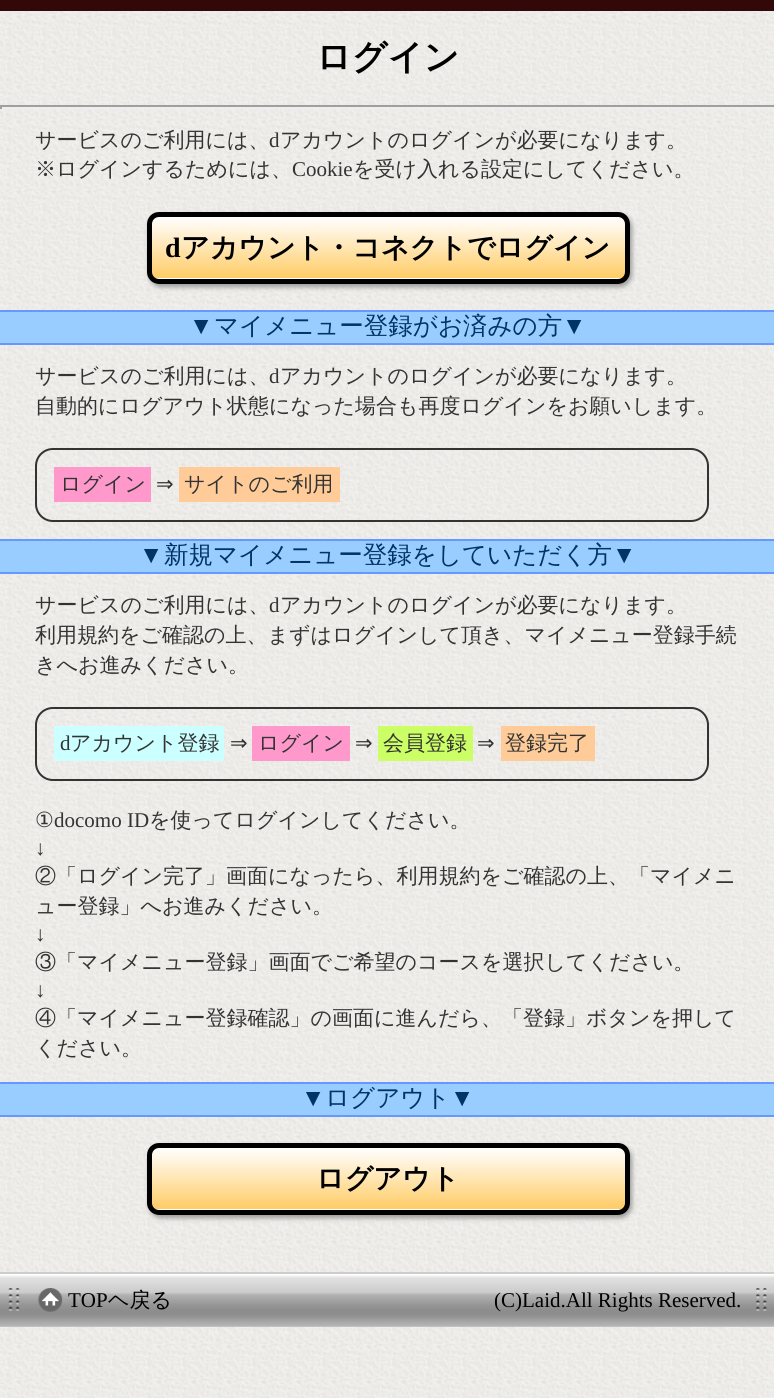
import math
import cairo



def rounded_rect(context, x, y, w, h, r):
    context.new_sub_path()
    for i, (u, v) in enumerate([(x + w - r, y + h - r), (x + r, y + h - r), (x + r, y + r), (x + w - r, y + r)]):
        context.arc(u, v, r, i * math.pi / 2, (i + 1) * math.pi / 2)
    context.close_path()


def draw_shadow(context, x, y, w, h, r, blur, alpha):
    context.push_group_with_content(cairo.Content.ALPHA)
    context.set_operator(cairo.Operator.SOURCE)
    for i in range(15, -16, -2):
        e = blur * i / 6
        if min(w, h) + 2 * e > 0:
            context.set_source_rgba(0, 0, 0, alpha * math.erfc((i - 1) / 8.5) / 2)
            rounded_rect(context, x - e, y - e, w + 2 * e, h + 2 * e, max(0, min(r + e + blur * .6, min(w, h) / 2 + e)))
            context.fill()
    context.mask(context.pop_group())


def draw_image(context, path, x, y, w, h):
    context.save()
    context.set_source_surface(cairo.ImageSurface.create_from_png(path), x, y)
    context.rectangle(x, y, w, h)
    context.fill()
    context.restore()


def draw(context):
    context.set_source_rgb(1, 1, 1)
    context.paint()
    draw_image(context, "images/1.png", 0, 11, 774, 1387)
    context.set_source_rgb(50 / 255, 8 / 255, 8 / 255)
    context.rectangle(0, 0, 774, 11)
    context.fill()
    context.set_source_rgb(159 / 255, 159 / 255, 159 / 255)
    context.rectangle(0, 105, 774, 2)
    context.fill()
    context.set_source_rgb(238 / 255, 238 / 255, 238 / 255)
    context.rectangle(0, 107, 774, 2)
    context.fill()
    context.set_source_rgb(159 / 255, 159 / 255, 159 / 255)
    context.rectangle(0, 105, 2, 4)
    context.fill()
    context.set_source_rgb(153 / 255, 153 / 255, 153 / 255)
    draw_shadow(context, 149, 215, 483, 72, 12, 2.5, 1)
    context.save()
    rounded_rect(context, 147, 212, 483, 72, 12)
    context.clip()
    gradient = cairo.LinearGradient(152, 217, 152, 278)
    gradient.add_color_stop_rgba(0, 1, 1, 1, 1)
    gradient.add_color_stop_rgba(1, 1, 204 / 255, 102 / 255, 1)
    context.set_source(gradient)
    context.rectangle(147, 217, 483, 61)
    context.fill()
    gradient = cairo.LinearGradient(152, 278, 152, 340)
    gradient.add_color_stop_rgba(0, 1, 1, 1, 1)
    gradient.add_color_stop_rgba(1, 1, 204 / 255, 102 / 255, 1)
    context.set_source(gradient)
    context.rectangle(147, 278, 483, 6)
    context.fill()
    context.restore()
    rounded_rect(context, 149.5, 214.5, 478, 67, 9.5)
    context.set_source_rgb(0, 0, 0)
    context.set_line_width(5)
    context.stroke()
    context.set_source_rgb(153 / 255, 204 / 255, 1)
    context.rectangle(0, 312, 774, 31)
    context.fill()
    context.set_source_rgb(102 / 255, 153 / 255, 1)
    context.rectangle(0, 310, 774, 2)
    context.fill()
    context.rectangle(0, 343, 774, 2)
    context.fill()
    rounded_rect(context, 36, 449, 672, 72, 17)
    context.set_source_rgb(51 / 255, 51 / 255, 51 / 255)
    context.set_line_width(2)
    context.stroke()
    context.set_source_rgb(1, 153 / 255, 204 / 255)
    context.rectangle(54, 467, 97, 35)
    context.fill()
    context.set_source_rgb(1, 204 / 255, 153 / 255)
    context.rectangle(179, 467, 161, 35)
    context.fill()
    context.set_source_rgb(153 / 255, 204 / 255, 1)
    context.rectangle(0, 541, 774, 31)
    context.fill()
    context.set_source_rgb(102 / 255, 153 / 255, 1)
    context.rectangle(0, 539, 774, 2)
    context.fill()
    context.rectangle(0, 572, 774, 2)
    context.fill()
    rounded_rect(context, 36, 708, 672, 72, 17)
    context.set_source_rgb(51 / 255, 51 / 255, 51 / 255)
    context.stroke()
    context.set_source_rgb(204 / 255, 1, 1)
    context.rectangle(54, 726, 170, 35)
    context.fill()
    context.set_source_rgb(1, 153 / 255, 204 / 255)
    context.rectangle(252, 726, 98, 35)
    context.fill()
    context.set_source_rgb(204 / 255, 1, 102 / 255)
    context.rectangle(378, 726, 95, 35)
    context.fill()
    context.set_source_rgb(1, 204 / 255, 153 / 255)
    context.rectangle(501, 726, 94, 35)
    context.fill()
    context.set_source_rgb(153 / 255, 204 / 255, 1)
    context.rectangle(0, 1084, 774, 31)
    context.fill()
    context.set_source_rgb(102 / 255, 153 / 255, 1)
    context.rectangle(0, 1082, 774, 2)
    context.fill()
    context.rectangle(0, 1115, 774, 2)
    context.fill()
    context.set_source_rgb(153 / 255, 153 / 255, 153 / 255)
    draw_shadow(context, 149, 1146, 483, 72, 12, 2.5, 1)
    context.save()
    rounded_rect(context, 147, 1143, 483, 72, 12)
    context.clip()
    gradient = cairo.LinearGradient(152, 1148, 152, 1209)
    gradient.add_color_stop_rgba(0, 1, 1, 1, 1)
    gradient.add_color_stop_rgba(1, 1, 204 / 255, 102 / 255, 1)
    context.set_source(gradient)
    context.rectangle(147, 1148, 483, 61)
    context.fill()
    gradient = cairo.LinearGradient(152, 1209, 152, 1271)
    gradient.add_color_stop_rgba(0, 1, 1, 1, 1)
    gradient.add_color_stop_rgba(1, 1, 204 / 255, 102 / 255, 1)
    context.set_source(gradient)
    context.rectangle(147, 1209, 483, 6)
    context.fill()
    context.restore()
    rounded_rect(context, 149.5, 1145.5, 478, 67, 9.5)
    context.set_source_rgb(0, 0, 0)
    context.set_line_width(5)
    context.stroke()
    context.set_source_rgb(204 / 255, 204 / 255, 204 / 255)
    context.rectangle(0, 1272, 774, 55)
    context.fill()
    draw_image(context, "images/2.png", 0, 1274, 774, 53)
    draw_image(context, "images/3.png", 8, 1288, 12, 23)
    draw_image(context, "images/4.png", 38, 1288, 25, 24)
    draw_image(context, "images/5.png", 756, 1288, 11, 23)
    context.select_font_face("WenQuanYi Zen Hei", cairo.FontSlant.NORMAL, cairo.FontWeight.BOLD)
    context.set_font_size(35)
    context.set_source_rgb(0, 0, 0)
    context.move_to(316, 69)
    context.show_text("ログイン")
    context.select_font_face("WenQuanYi Zen Hei Medium")
    context.set_font_size(21)
    context.set_source_rgb(51 / 255, 51 / 255, 51 / 255)
    context.move_to(35, 147)
    context.show_text("サービスのご利用には、")
    context.select_font_face("Liberation Serif")
    context.move_to(269, 147)
    context.show_text("d")
    context.select_font_face("WenQuanYi Zen Hei Medium")
    context.move_to(280, 147)
    context.show_text("アカウントのログインが必要になります。")
    context.move_to(35, 176)
    context.show_text("※ログインするためには、")
    context.select_font_face("Liberation Serif")
    context.move_to(292, 176)
    context.show_text("Cookie")
    context.select_font_face("WenQuanYi Zen Hei Medium")
    context.move_to(353, 176)
    context.show_text("を受け入れる設定にしてください。")
    context.select_font_face("Liberation Serif", cairo.FontSlant.NORMAL, cairo.FontWeight.BOLD)
    context.set_font_size(28)
    context.set_source_rgb(0, 0, 0)
    context.move_to(165, 257)
    context.show_text("d")
    context.select_font_face("WenQuanYi Zen Hei", cairo.FontSlant.NORMAL, cairo.FontWeight.BOLD)
    context.move_to(181, 257)
    context.show_text("アカウント・コネクトでログイン")
    context.select_font_face("Liberation Serif")
    context.set_font_size(24.5)
    context.set_source_rgb(0, 51 / 255, 102 / 255)
    context.move_to(189, 334)
    context.show_text("▼")
    context.select_font_face("WenQuanYi Zen Hei Medium")
    context.move_to(214, 334)
    context.show_text("マイメニュー登録がお済みの方")
    context.select_font_face("Liberation Serif")
    context.move_to(562, 334)
    context.show_text("▼")
    context.select_font_face("WenQuanYi Zen Hei Medium")
    context.set_font_size(21)
    context.set_source_rgb(51 / 255, 51 / 255, 51 / 255)
    context.move_to(35, 383)
    context.show_text("サービスのご利用には、")
    context.select_font_face("Liberation Serif")
    context.move_to(269, 383)
    context.show_text("d")
    context.select_font_face("WenQuanYi Zen Hei Medium")
    context.move_to(280, 383)
    context.show_text("アカウントのログインが必要になります。")
    context.move_to(35, 413)
    context.show_text("自動的にログアウト状態になった場合も再度ログインをお願いします。")
    context.move_to(60, 491)
    context.show_text("ログイン")
    context.select_font_face("DejaVu Sans")
    context.move_to(156, 491)
    context.show_text("⇒")
    context.select_font_face("WenQuanYi Zen Hei Medium")
    context.move_to(184, 491)
    context.show_text("サイトのご利用")
    context.select_font_face("Liberation Serif")
    context.set_font_size(24.5)
    context.set_source_rgb(0, 51 / 255, 102 / 255)
    context.move_to(139, 563)
    context.show_text("▼")
    context.select_font_face("WenQuanYi Zen Hei Medium")
    context.move_to(164, 563)
    context.show_text("新規マイメニュー登録をしていただく方")
    context.select_font_face("Liberation Serif")
    context.move_to(612, 563)
    context.show_text("▼")
    context.select_font_face("WenQuanYi Zen Hei Medium")
    context.set_font_size(21)
    context.set_source_rgb(51 / 255, 51 / 255, 51 / 255)
    context.move_to(35, 612)
    context.show_text("サービスのご利用には、")
    context.select_font_face("Liberation Serif")
    context.move_to(269, 612)
    context.show_text("d")
    context.select_font_face("WenQuanYi Zen Hei Medium")
    context.move_to(280, 612)
    context.show_text("アカウントのログインが必要になります。")
    context.move_to(35, 642)
    context.show_text("利用規約をご確認の上、まずはログインして頂き、マイメニュー登録手続")
    context.move_to(35, 672)
    context.show_text("きへお進みください。")
    context.select_font_face("Liberation Serif")
    context.move_to(60, 750)
    context.show_text("d")
    context.select_font_face("WenQuanYi Zen Hei Medium")
    context.move_to(70, 750)
    context.show_text("アカウント登録")
    context.select_font_face("DejaVu Sans")
    context.move_to(230, 750)
    context.show_text("⇒")
    context.select_font_face("WenQuanYi Zen Hei Medium")
    context.move_to(258, 750)
    context.show_text("ログイン")
    context.select_font_face("DejaVu Sans")
    context.move_to(355, 750)
    context.show_text("⇒")
    context.select_font_face("WenQuanYi Zen Hei Medium")
    context.move_to(383, 750)
    context.show_text("会員登録")
    context.select_font_face("DejaVu Sans")
    context.move_to(477, 750)
    context.show_text("⇒")
    context.select_font_face("WenQuanYi Zen Hei Medium")
    context.move_to(505, 750)
    context.show_text("登録完了")
    context.select_font_face("DejaVu Sans")
    context.move_to(35, 827)
    context.show_text("①")
    context.select_font_face("Liberation Serif")
    context.move_to(54, 827)
    context.show_text("docomo ID")
    context.select_font_face("WenQuanYi Zen Hei Medium")
    context.move_to(149, 827)
    context.show_text("を使ってログインしてください。")
    context.select_font_face("Liberation Serif")
    context.move_to(35, 855)
    context.show_text("↓")
    context.select_font_face("WenQuanYi Zen Hei Medium")
    context.move_to(35, 883)
    context.show_text("②「ログイン完了」画面になったら、利用規約をご確認の上、「マイメニ")
    context.move_to(35, 913)
    context.show_text("ュー登録」へお進みください。")
    context.select_font_face("Liberation Serif")
    context.move_to(35, 941)
    context.show_text("↓")
    context.select_font_face("WenQuanYi Zen Hei Medium")
    context.move_to(35, 969)
    context.show_text("③「マイメニュー登録」画面でご希望のコースを選択してください。")
    context.select_font_face("Liberation Serif")
    context.move_to(35, 997)
    context.show_text("↓")
    context.select_font_face("WenQuanYi Zen Hei Medium")
    context.move_to(35, 1025)
    context.show_text("④「マイメニュー登録確認」の画面に進んだら、「登録」ボタンを押して")
    context.move_to(35, 1055)
    context.show_text("ください。")
    context.select_font_face("Liberation Serif")
    context.set_font_size(24.5)
    context.set_source_rgb(0, 51 / 255, 102 / 255)
    context.move_to(301, 1106)
    context.show_text("▼")
    context.select_font_face("WenQuanYi Zen Hei Medium")
    context.move_to(325, 1106)
    context.show_text("ログアウト")
    context.select_font_face("Liberation Serif")
    context.move_to(450, 1106)
    context.show_text("▼")
    context.select_font_face("WenQuanYi Zen Hei", cairo.FontSlant.NORMAL, cairo.FontWeight.BOLD)
    context.set_font_size(28)
    context.set_source_rgb(0, 0, 0)
    context.move_to(316, 1188)
    context.show_text("ログアウト")
    context.select_font_face("Liberation Serif")
    context.set_font_size(21)
    context.move_to(68, 1307)
    context.show_text("TOP")
    context.select_font_face("WenQuanYi Zen Hei Medium")
    context.move_to(108, 1307)
    context.show_text("ヘ戻る")
    context.select_font_face("Liberation Serif")
    context.move_to(494, 1307)
    context.show_text("(C)Laid.All Rights Reserved.")


surface = cairo.ImageSurface(cairo.Format.RGB24, 774, 1398)
context = cairo.Context(surface)
options = cairo.FontOptions()
options.set_hint_metrics(cairo.HintMetrics.OFF)
options.set_hint_style(cairo.HintStyle.NONE)
context.set_font_options(options)
context.set_miter_limit(4)
draw(context)
surface.write_to_png("out.png")
